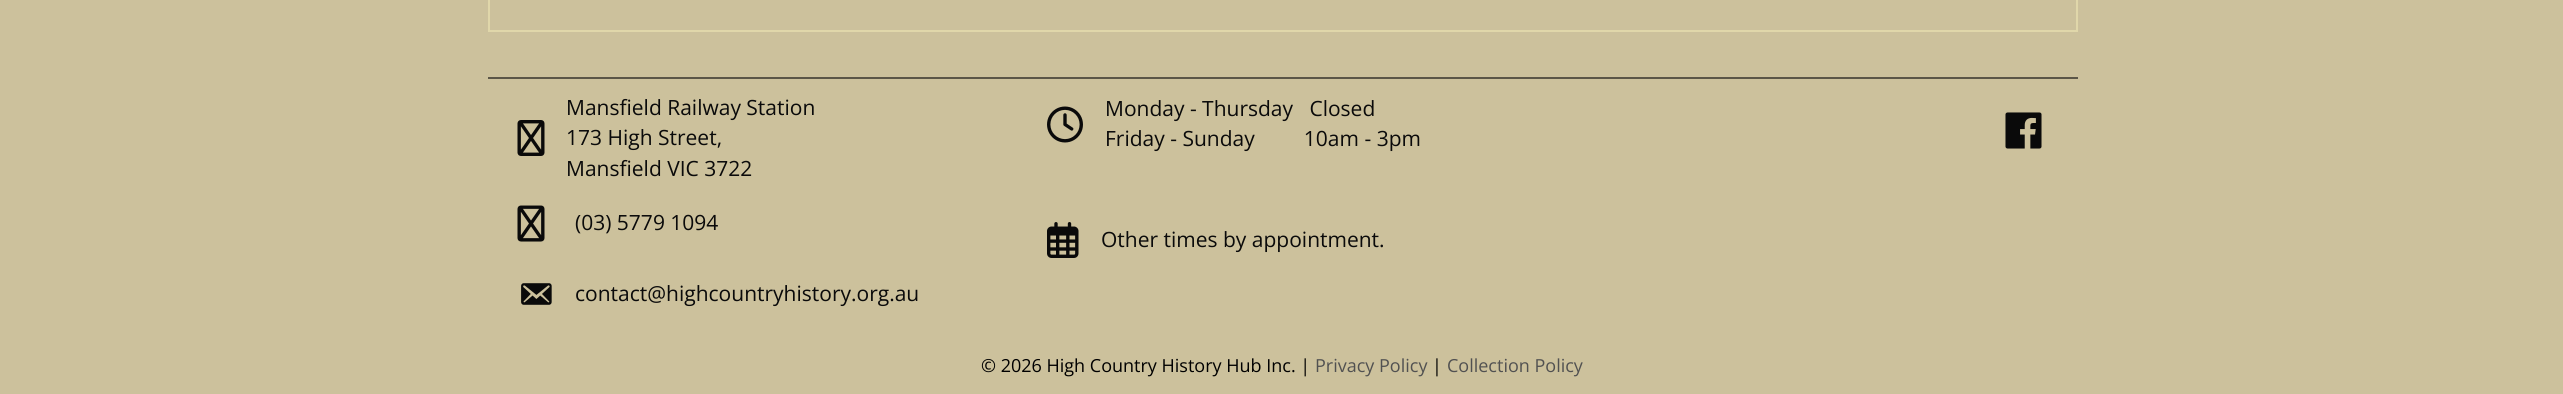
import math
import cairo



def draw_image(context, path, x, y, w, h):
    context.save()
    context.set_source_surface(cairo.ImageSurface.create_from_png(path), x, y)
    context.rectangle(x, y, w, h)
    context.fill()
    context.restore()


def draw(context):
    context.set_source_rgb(204 / 255, 193 / 255, 156 / 255)
    context.paint()
    context.rectangle(489, -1, 1588, 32)
    context.set_source_rgb(224 / 255, 215 / 255, 170 / 255)
    context.stroke()
    context.set_source_rgb(91 / 255, 86 / 255, 71 / 255)
    context.rectangle(488, 77, 1590, 2)
    context.fill()
    draw_image(context, "images/1.png", 517, 120, 28, 36)
    draw_image(context, "images/2.png", 517, 205, 28, 37)
    draw_image(context, "images/3.png", 521, 283, 31, 22)
    draw_image(context, "images/4.png", 1047, 106, 36, 37)
    draw_image(context, "images/5.png", 1047, 222, 32, 36)
    draw_image(context, "images/6.png", 2005, 112, 37, 37)
    context.select_font_face("Open Sans")
    context.set_font_size(21)
    context.set_source_rgb(10 / 255, 10 / 255, 10 / 255)
    context.move_to(566, 115)
    context.show_text("Mansfield Railway Station")
    context.move_to(566, 145)
    context.show_text("173 High Street,")
    context.move_to(566, 176)
    context.show_text("Mansfield VIC 3722")
    context.move_to(575, 230)
    context.show_text("(03) 5779 1094")
    context.move_to(575, 301)
    context.show_text("contact@highcountryhistory.org.au")
    context.move_to(1105, 116)
    context.show_text("Monday - Thursday   Closed")
    context.move_to(1105, 146)
    context.show_text("Friday - Sunday         10am - 3pm")
    context.move_to(1101, 247)
    context.show_text("Other times by appointment.")
    context.set_font_size(18)
    context.set_source_rgb(0, 0, 0)
    context.move_to(981, 372)
    context.show_text("© 2026 High Country History Hub Inc. |")
    context.set_source_rgb(81 / 255, 81 / 255, 81 / 255)
    context.move_to(1315, 372)
    context.show_text("Privacy Policy")
    context.set_source_rgb(0, 0, 0)
    context.move_to(1432, 372)
    context.show_text("|")
    context.set_source_rgb(81 / 255, 81 / 255, 81 / 255)
    context.move_to(1447, 372)
    context.show_text("Collection Policy")


surface = cairo.ImageSurface(cairo.Format.RGB24, 2563, 394)
context = cairo.Context(surface)
options = cairo.FontOptions()
options.set_hint_metrics(cairo.HintMetrics.OFF)
options.set_hint_style(cairo.HintStyle.NONE)
context.set_font_options(options)
context.set_miter_limit(4)
draw(context)
surface.write_to_png("out.png")
